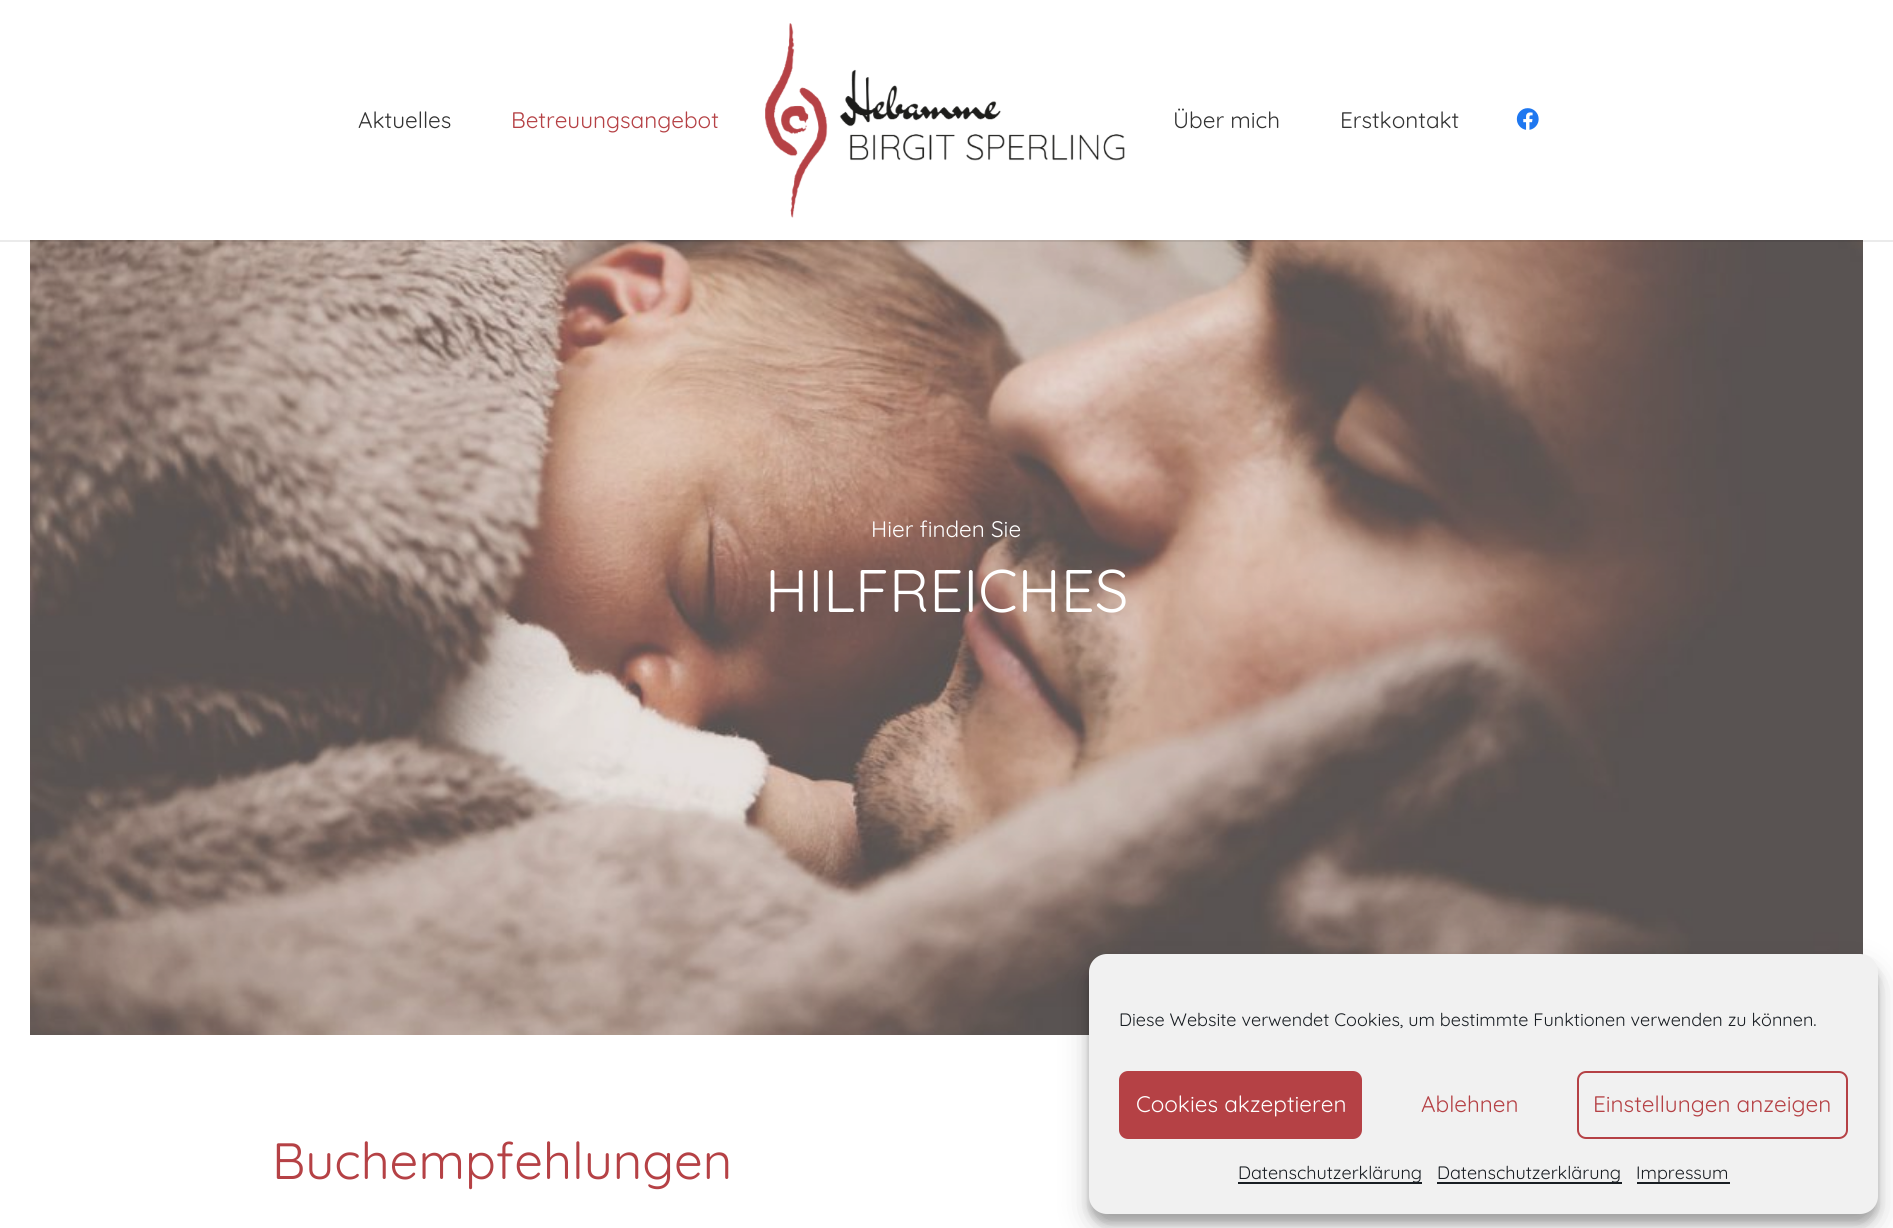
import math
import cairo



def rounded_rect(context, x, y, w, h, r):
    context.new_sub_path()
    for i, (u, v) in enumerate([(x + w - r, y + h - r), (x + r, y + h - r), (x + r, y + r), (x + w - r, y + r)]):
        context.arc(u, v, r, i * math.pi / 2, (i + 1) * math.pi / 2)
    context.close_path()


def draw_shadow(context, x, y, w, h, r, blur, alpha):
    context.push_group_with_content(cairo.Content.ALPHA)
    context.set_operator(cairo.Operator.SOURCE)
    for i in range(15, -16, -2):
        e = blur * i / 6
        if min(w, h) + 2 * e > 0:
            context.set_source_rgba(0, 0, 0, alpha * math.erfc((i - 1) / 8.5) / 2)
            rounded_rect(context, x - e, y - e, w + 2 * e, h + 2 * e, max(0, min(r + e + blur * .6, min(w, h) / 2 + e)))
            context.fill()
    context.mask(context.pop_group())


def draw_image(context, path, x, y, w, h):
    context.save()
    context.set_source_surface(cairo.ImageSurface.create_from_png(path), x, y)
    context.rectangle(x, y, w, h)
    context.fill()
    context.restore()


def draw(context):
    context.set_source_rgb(1, 1, 1)
    context.paint()
    draw_image(context, "images/3.png", 30, 240, 1833, 795)
    context.set_source_rgba(0, 0, 0, 0.08)
    context.rectangle(0, 240, 1893, 2)
    context.fill()
    draw_image(context, "images/1.png", 765, 23, 360, 195)
    draw_image(context, "images/2.png", 1516, 108, 23, 22)
    context.set_source_rgb(0, 0, 0)
    draw_shadow(context, 1089, 963, 789, 260, 18, 4.5, 0.23)
    draw_shadow(context, 1089, 969, 789, 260, 18, 15, 0.19)
    context.set_source_rgb(241 / 255, 241 / 255, 241 / 255)
    rounded_rect(context, 1089, 954, 789, 260, 18)
    context.fill()
    context.set_source_rgb(181 / 255, 65 / 255, 69 / 255)
    rounded_rect(context, 1120, 1072, 241, 66, 8)
    context.fill_preserve()
    context.stroke()
    rounded_rect(context, 1578, 1072, 269, 66, 8)
    context.stroke()
    context.set_source_rgb(25 / 255, 30 / 255, 35 / 255)
    context.rectangle(1238, 1182, 184, 2)
    context.fill()
    context.rectangle(1437, 1182, 185, 2)
    context.fill()
    context.rectangle(1637, 1182, 93, 2)
    context.fill()
    context.select_font_face("Quicksand")
    context.set_font_size(22.5)
    context.set_source_rgb(51 / 255, 51 / 255, 51 / 255)
    context.move_to(358, 128)
    context.show_text("Aktuelles")
    context.set_source_rgb(181 / 255, 65 / 255, 69 / 255)
    context.move_to(511, 128)
    context.show_text("Betreuungsangebot")
    context.set_source_rgb(51 / 255, 51 / 255, 51 / 255)
    context.move_to(1173, 128)
    context.show_text("Über mich")
    context.move_to(1340, 128)
    context.show_text("Erstkontakt")
    context.set_source_rgb(1, 1, 1)
    context.move_to(871, 537)
    context.show_text("Hier finden Sie")
    context.set_font_size(60)
    context.move_to(765, 612)
    context.show_text("HILFREICHES")
    context.set_font_size(51)
    context.set_source_rgb(181 / 255, 65 / 255, 69 / 255)
    context.move_to(272, 1179)
    context.show_text("Buchempfehlungen")
    context.set_font_size(18)
    context.set_source_rgb(25 / 255, 30 / 255, 35 / 255)
    context.move_to(1119, 1026)
    context.show_text("Diese Website verwendet Cookies, um bestimmte Funktionen verwenden zu können.")
    context.set_font_size(22.5)
    context.set_source_rgb(1, 1, 1)
    context.move_to(1136, 1112)
    context.show_text("Cookies akzeptieren")
    context.set_source_rgb(181 / 255, 65 / 255, 69 / 255)
    context.move_to(1421, 1112)
    context.show_text("Ablehnen")
    context.move_to(1593, 1112)
    context.show_text("Einstellungen anzeigen")
    context.set_font_size(18)
    context.set_source_rgb(25 / 255, 30 / 255, 35 / 255)
    context.move_to(1238, 1179)
    context.show_text("Datenschutzerklärung")
    context.move_to(1437, 1179)
    context.show_text("Datenschutzerklärung")
    context.move_to(1636, 1179)
    context.show_text("Impressum")


surface = cairo.ImageSurface(cairo.Format.RGB24, 1893, 1228)
context = cairo.Context(surface)
options = cairo.FontOptions()
options.set_hint_metrics(cairo.HintMetrics.OFF)
options.set_hint_style(cairo.HintStyle.NONE)
context.set_font_options(options)
context.set_miter_limit(4)
draw(context)
surface.write_to_png("out.png")
